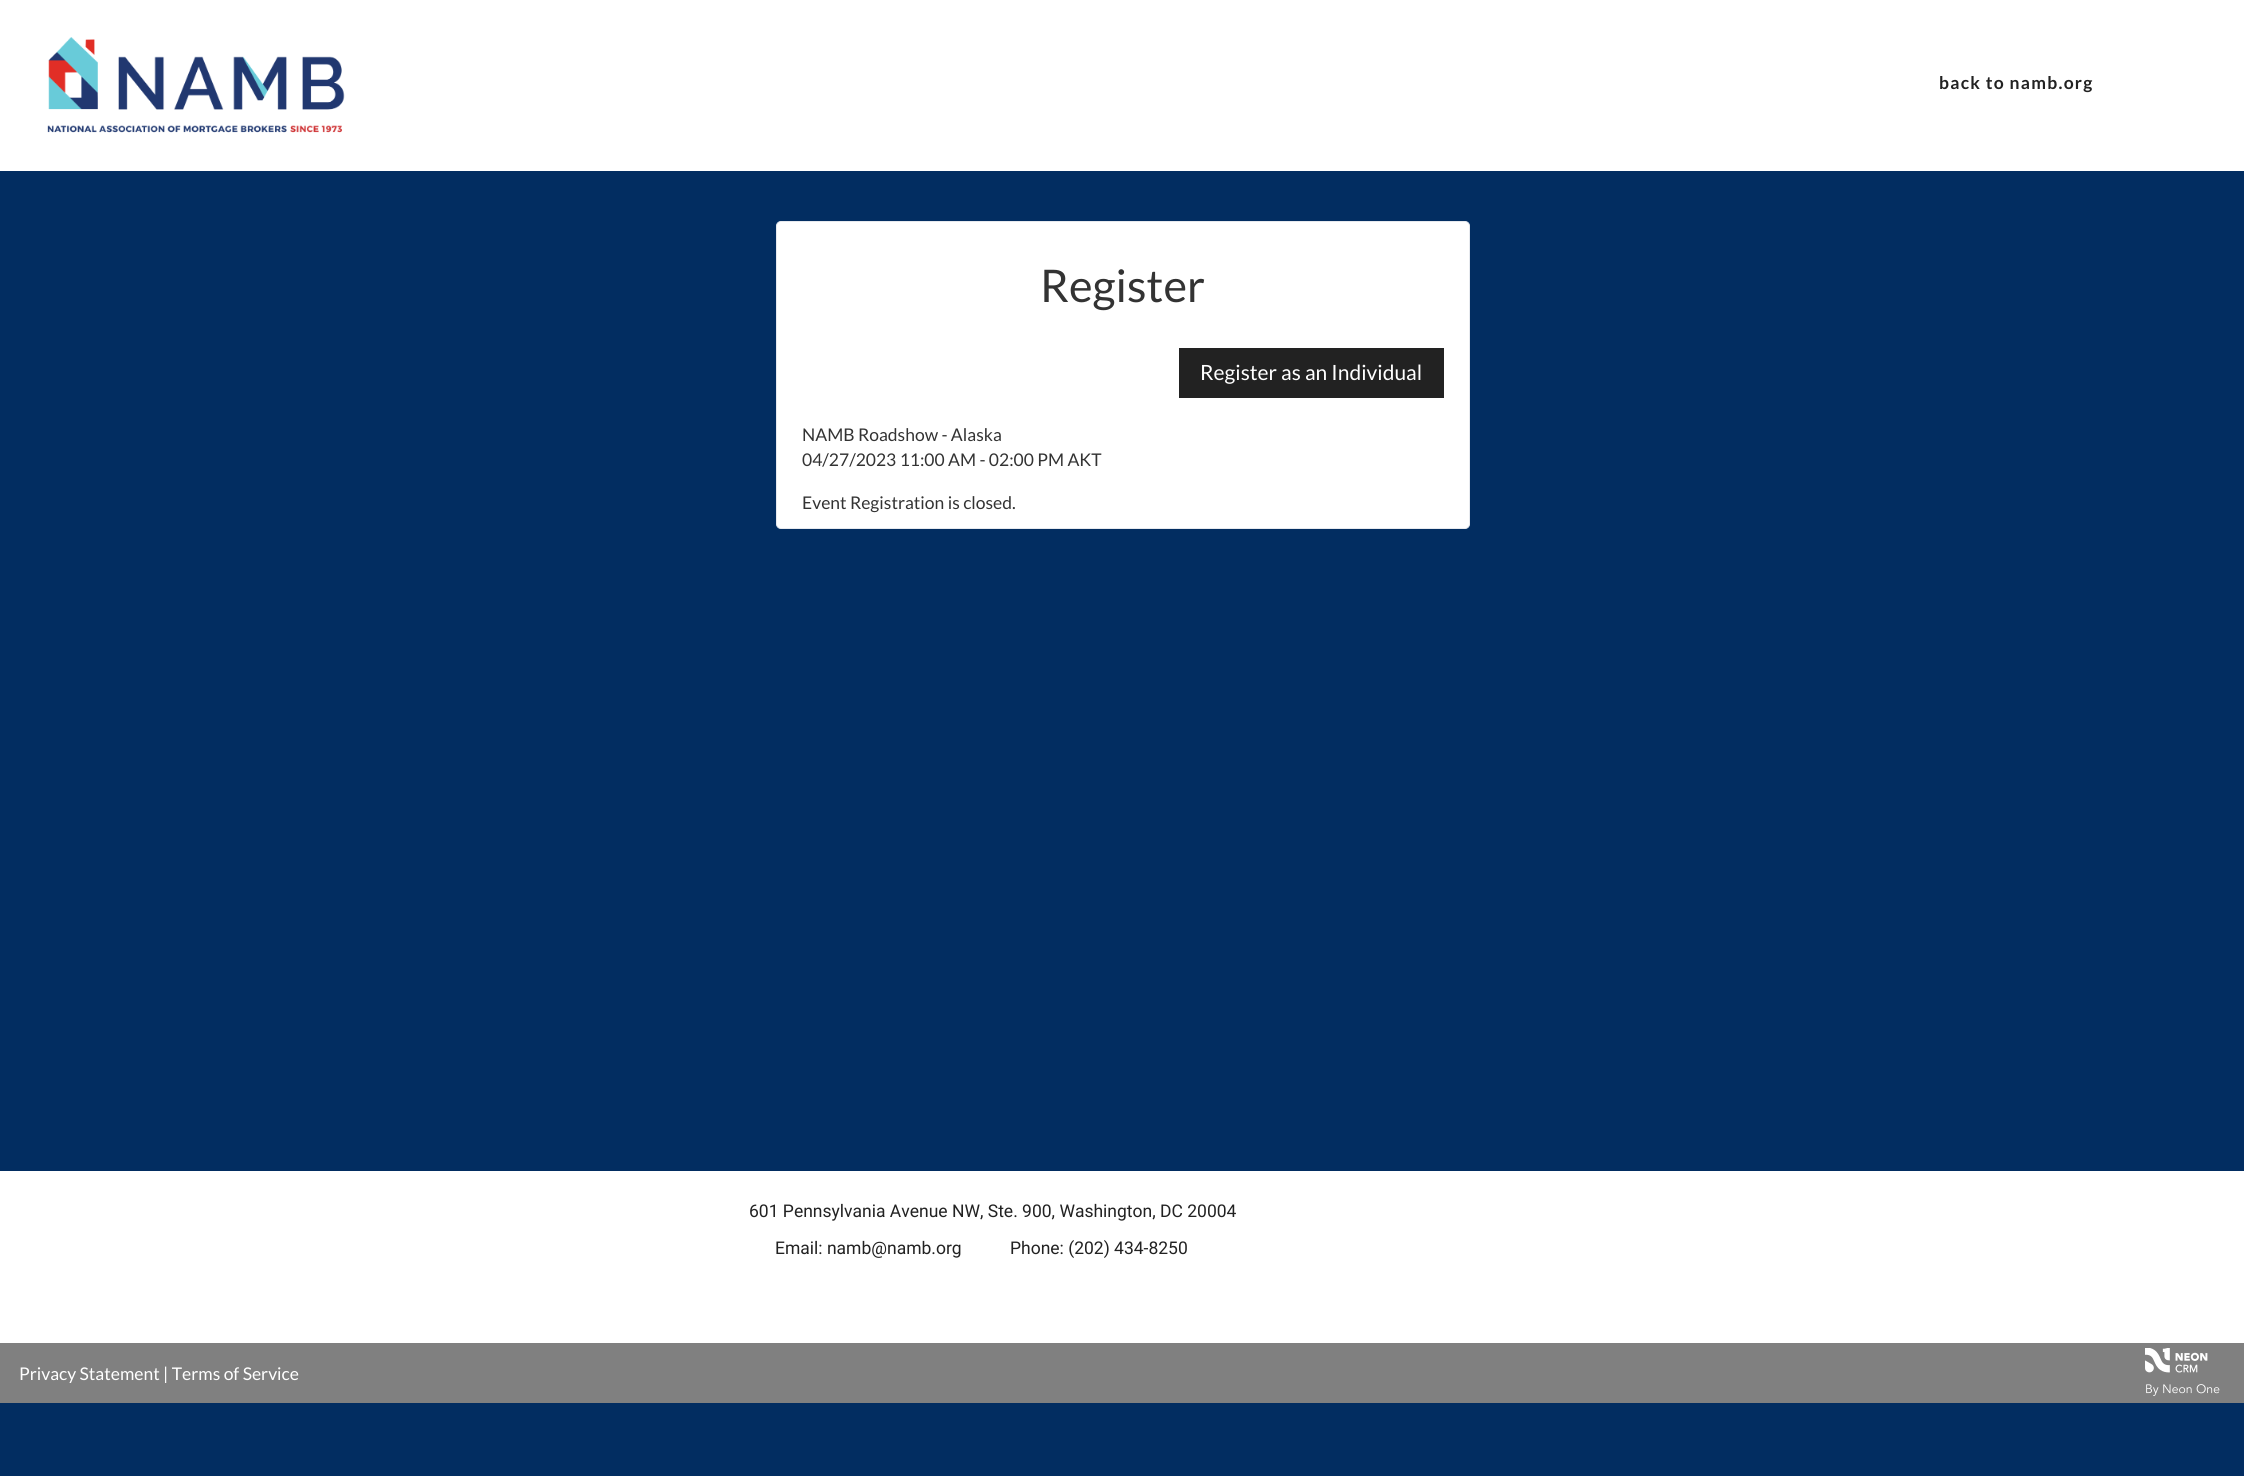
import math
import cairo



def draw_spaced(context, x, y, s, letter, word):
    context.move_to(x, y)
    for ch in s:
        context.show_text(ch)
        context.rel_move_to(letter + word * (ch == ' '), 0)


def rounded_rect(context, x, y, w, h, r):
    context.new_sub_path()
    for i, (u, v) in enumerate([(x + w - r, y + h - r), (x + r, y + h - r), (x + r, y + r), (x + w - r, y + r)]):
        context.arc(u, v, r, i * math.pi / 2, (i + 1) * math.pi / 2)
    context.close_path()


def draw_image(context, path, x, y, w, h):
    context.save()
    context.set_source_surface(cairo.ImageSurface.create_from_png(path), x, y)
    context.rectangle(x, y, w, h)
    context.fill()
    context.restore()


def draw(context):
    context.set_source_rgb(2 / 255, 45 / 255, 97 / 255)
    context.paint()
    context.set_source_rgb(1, 1, 1)
    context.rectangle(0, 0, 2244, 171)
    context.fill()
    draw_image(context, "images/1.png", 47, 37, 298, 96)
    rounded_rect(context, 776.5, 221.5, 693, 307, 4.5)
    context.fill_preserve()
    context.set_source_rgb(230 / 255, 233 / 255, 238 / 255)
    context.set_line_width(1)
    context.stroke()
    context.set_source_rgb(34 / 255, 34 / 255, 34 / 255)
    context.rectangle(1179, 348, 265, 50)
    context.fill()
    context.set_source_rgb(1, 1, 1)
    context.rectangle(0, 1171, 2244, 172)
    context.fill()
    context.set_source_rgb(128 / 255, 128 / 255, 128 / 255)
    context.rectangle(0, 1343, 2244, 60)
    context.fill()
    draw_image(context, "images/2.png", 2145, 1348, 63, 25)
    draw_image(context, "images/3.png", 2146, 1384, 74, 12)
    context.select_font_face("Lato", cairo.FontSlant.NORMAL, cairo.FontWeight.BOLD)
    context.set_font_size(17.5)
    context.set_source_rgb(34 / 255, 34 / 255, 34 / 255)
    draw_spaced(context, 1939, 89, "back to namb.org", 1.25, 0)
    context.select_font_face("Lato")
    context.set_font_size(45)
    context.set_source_rgb(51 / 255, 51 / 255, 51 / 255)
    context.move_to(1040, 302)
    context.show_text("Register")
    context.set_font_size(21)
    context.set_source_rgb(1, 1, 1)
    context.move_to(1200, 380)
    context.show_text("Register as an Individual")
    context.set_font_size(17.5)
    context.set_source_rgb(51 / 255, 51 / 255, 51 / 255)
    context.move_to(802, 441)
    context.show_text("NAMB Roadshow - Alaska")
    context.move_to(802, 466)
    context.show_text("04/27/2023 11:00 AM - 02:00 PM AKT")
    context.move_to(802, 509)
    context.show_text("Event Registration is closed.")
    context.select_font_face("Roboto")
    context.set_source_rgb(34 / 255, 34 / 255, 34 / 255)
    context.move_to(749, 1217)
    context.show_text("601 Pennsylvania Avenue NW, Ste. 900, Washington, DC 20004")
    context.move_to(775, 1254)
    context.show_text("Email: namb@namb.org")
    context.move_to(1010, 1254)
    context.show_text("Phone: (202) 434-8250")
    context.select_font_face("Lato")
    context.set_source_rgb(1, 1, 1)
    context.move_to(19, 1380)
    context.show_text("Privacy Statement | Terms of Service")


surface = cairo.ImageSurface(cairo.Format.RGB24, 2244, 1476)
context = cairo.Context(surface)
options = cairo.FontOptions()
options.set_hint_metrics(cairo.HintMetrics.OFF)
options.set_hint_style(cairo.HintStyle.NONE)
context.set_font_options(options)
context.set_miter_limit(4)
draw(context)
surface.write_to_png("out.png")
